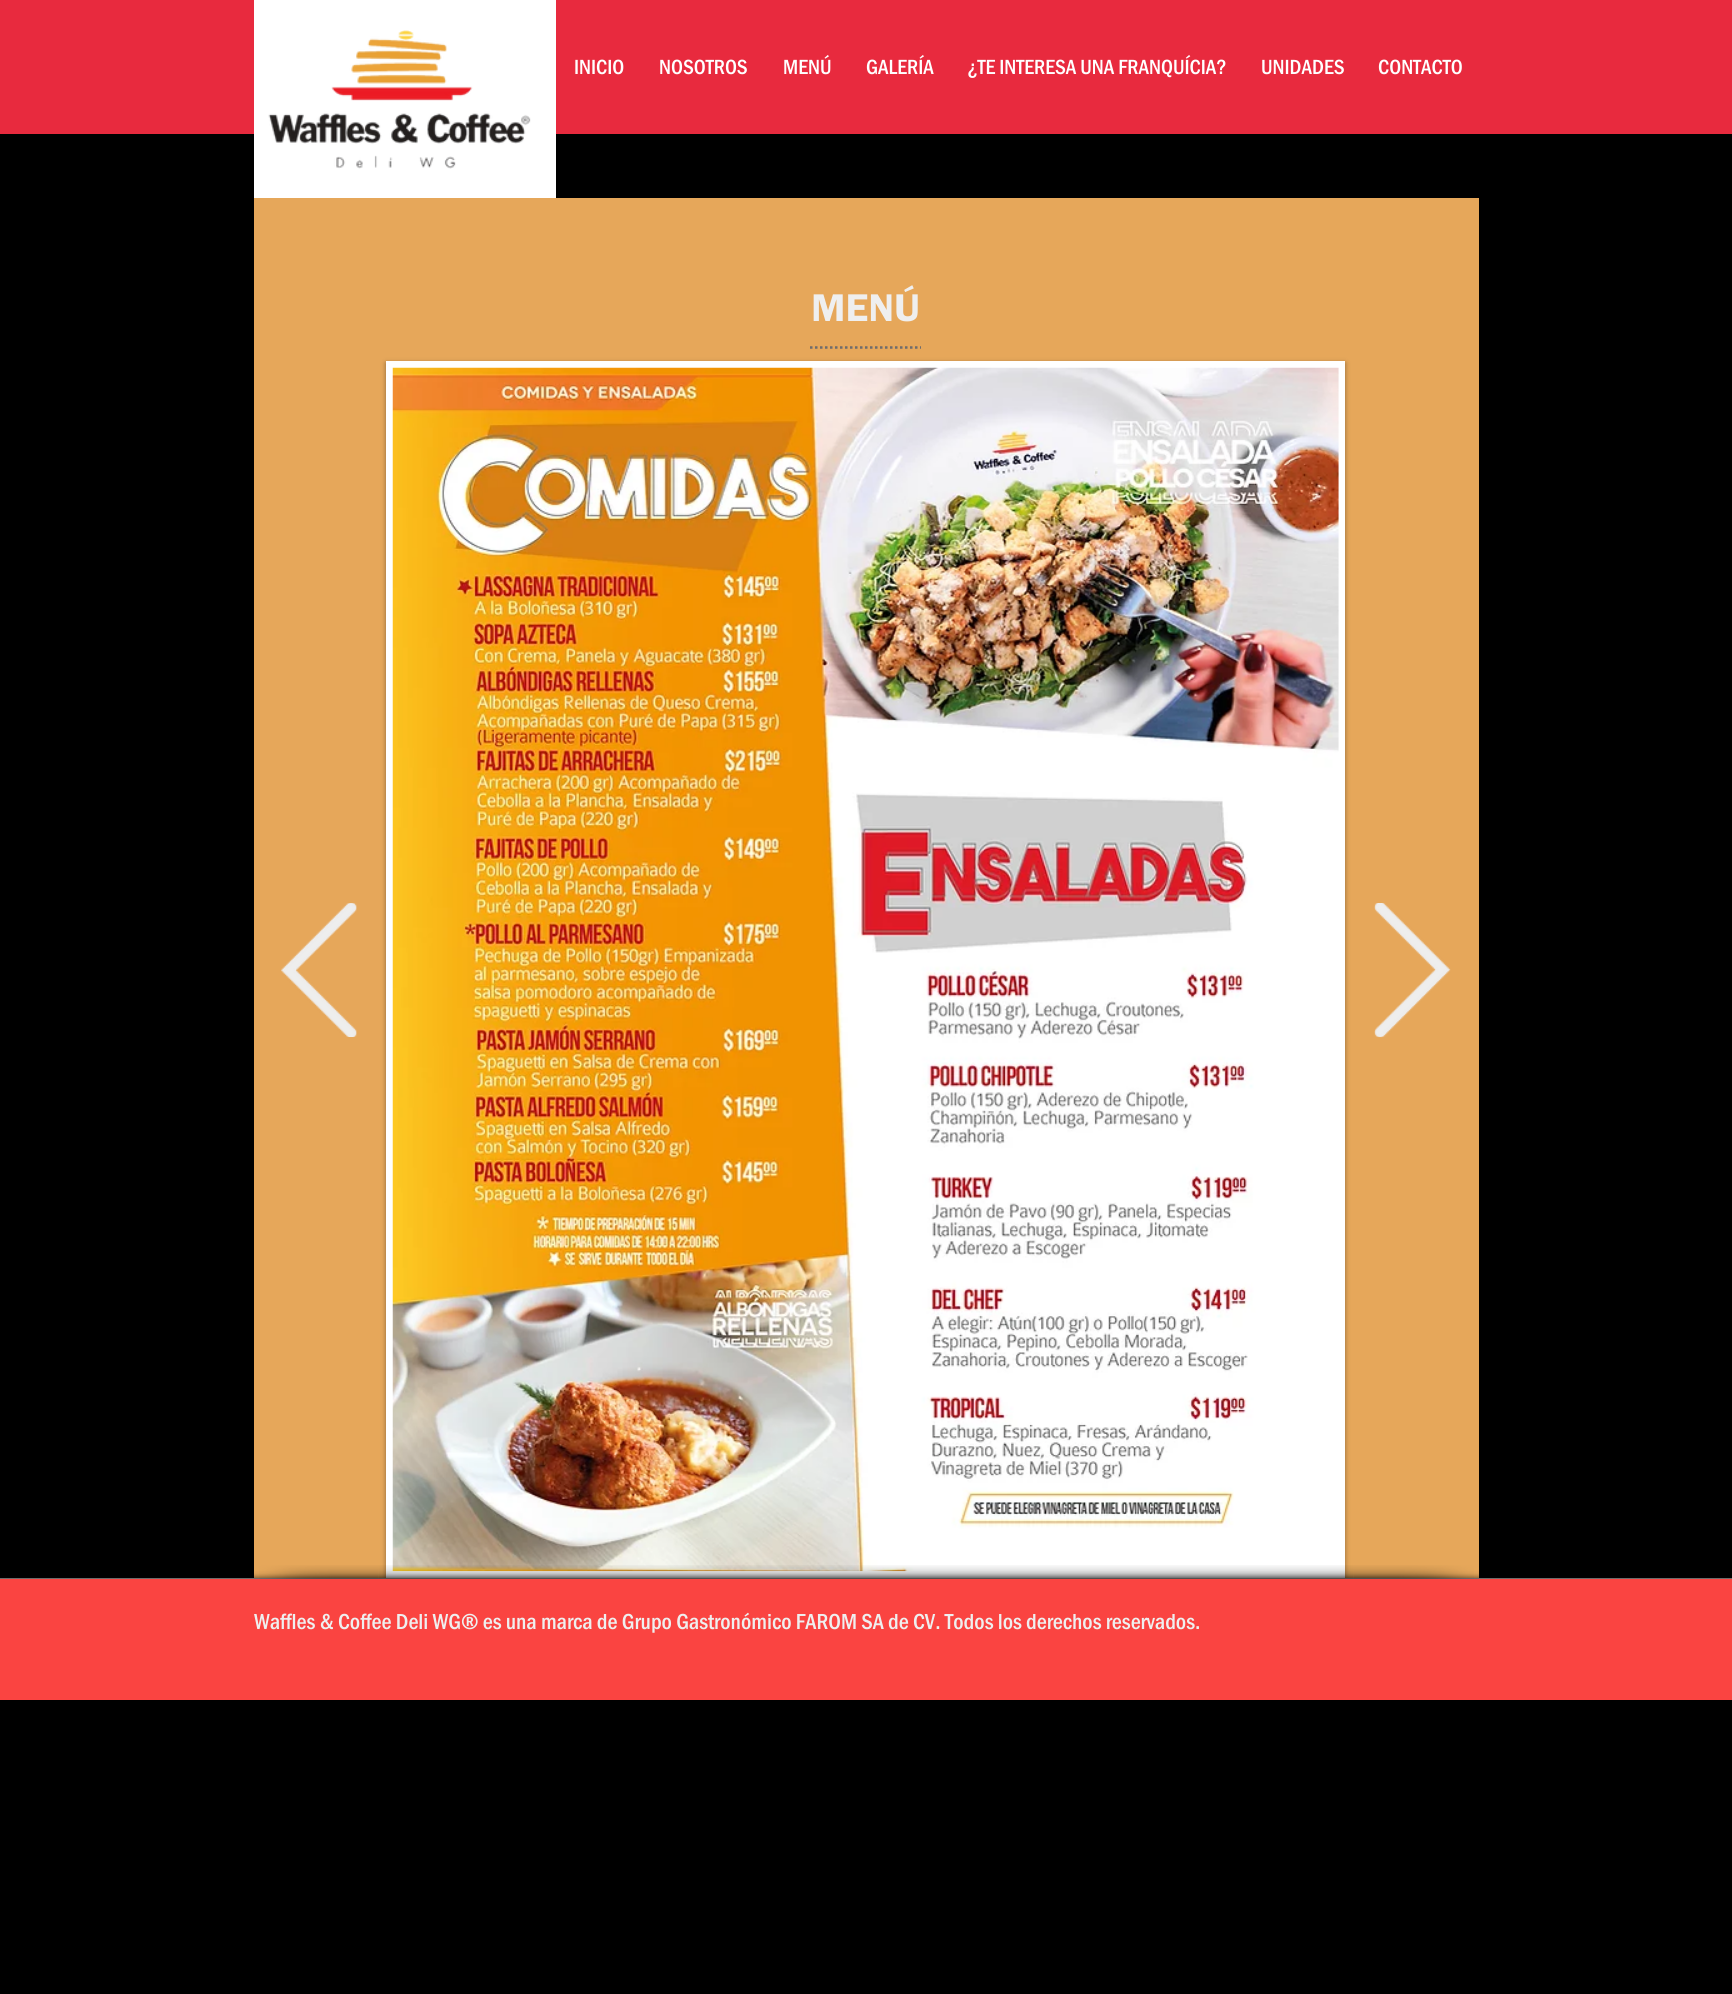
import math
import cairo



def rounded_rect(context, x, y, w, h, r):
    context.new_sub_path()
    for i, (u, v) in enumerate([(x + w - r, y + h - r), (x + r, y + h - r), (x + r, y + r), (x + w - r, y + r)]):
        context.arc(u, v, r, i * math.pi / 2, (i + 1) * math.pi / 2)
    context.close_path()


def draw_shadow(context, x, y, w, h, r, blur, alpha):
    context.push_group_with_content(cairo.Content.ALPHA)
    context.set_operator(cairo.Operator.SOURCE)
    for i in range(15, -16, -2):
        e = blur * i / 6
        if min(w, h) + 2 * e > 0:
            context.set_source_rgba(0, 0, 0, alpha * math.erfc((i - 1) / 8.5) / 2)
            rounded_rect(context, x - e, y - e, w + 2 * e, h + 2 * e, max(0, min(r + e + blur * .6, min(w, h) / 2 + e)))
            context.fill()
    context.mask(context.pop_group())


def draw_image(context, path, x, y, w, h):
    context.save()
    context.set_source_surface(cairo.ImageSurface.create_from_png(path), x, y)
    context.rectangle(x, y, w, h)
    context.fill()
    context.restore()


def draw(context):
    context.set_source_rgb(0, 0, 0)
    context.paint()
    context.set_source_rgb(232 / 255, 42 / 255, 62 / 255)
    context.rectangle(0, 0, 1732, 134)
    context.fill()
    context.set_source_rgb(1, 1, 1)
    context.rectangle(254, 0, 302, 198)
    context.fill()
    draw_image(context, "images/1.png", 268, 30, 263, 139)
    context.set_source_rgb(230 / 255, 167 / 255, 90 / 255)
    context.rectangle(254, 198, 1225, 1380)
    context.fill()
    context.new_path()
    context.move_to(810, 347.5)
    context.line_to(921, 347.5)
    context.set_source_rgb(110 / 255, 108 / 255, 108 / 255)
    context.set_line_width(2.5)
    context.set_dash([2.5, 2.5])
    context.stroke()
    draw_image(context, "images/2.png", 281, 903, 76, 135)
    context.set_source_rgb(0, 0, 0)
    draw_shadow(context, 386, 363, 959, 1216, 0, 2.5, 0.4)
    context.set_source_rgb(1, 1, 1)
    context.rectangle(386, 361, 959, 1217)
    context.fill()
    draw_image(context, "images/3.png", 392, 367, 947, 1205)
    draw_image(context, "images/4.png", 1374, 903, 77, 135)
    context.set_source_rgb(0, 0, 0)
    draw_shadow(context, 0, 1578, 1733, 122, 0, 3, 0.7)
    context.set_source_rgb(250 / 255, 68 / 255, 65 / 255)
    context.rectangle(0, 1579, 1732, 121)
    context.fill()
    context.set_source_rgb(110 / 255, 108 / 255, 108 / 255)
    context.rectangle(0, 1578, 1732, 1)
    context.fill()
    draw_image(context, "images/5.png", 259, 1565, 120, 14)
    draw_image(context, "images/6.png", 378, 1565, 976, 14)
    draw_image(context, "images/7.png", 1353, 1565, 121, 14)
    context.select_font_face("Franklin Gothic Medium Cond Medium")
    context.set_font_size(21.25)
    context.set_source_rgb(1, 1, 1)
    context.move_to(574, 74)
    context.show_text("INICIO")
    context.move_to(659, 74)
    context.show_text("NOSOTROS")
    context.move_to(783, 74)
    context.show_text("MENÚ")
    context.move_to(866, 74)
    context.show_text("GALERÍA")
    context.move_to(967, 74)
    context.show_text("¿TE INTERESA UNA FRANQUÍCIA?")
    context.move_to(1261, 74)
    context.show_text("UNIDADES")
    context.move_to(1378, 74)
    context.show_text("CONTACTO")
    context.select_font_face("Franklin Gothic")
    context.set_font_size(40)
    context.set_source_rgb(239 / 255, 239 / 255, 239 / 255)
    context.move_to(811, 321)
    context.show_text("MENÚ")
    context.select_font_face("Franklin Gothic Medium Cond Medium")
    context.set_font_size(22.5)
    context.move_to(254, 1629)
    context.show_text("Waffles & Coffee Deli WG® es una marca de Grupo Gastronómico FAROM SA de CV. Todos los derechos reservados.")


surface = cairo.ImageSurface(cairo.Format.RGB24, 1732, 1994)
context = cairo.Context(surface)
options = cairo.FontOptions()
options.set_hint_metrics(cairo.HintMetrics.OFF)
options.set_hint_style(cairo.HintStyle.NONE)
context.set_font_options(options)
context.set_miter_limit(4)
draw(context)
surface.write_to_png("out.png")
